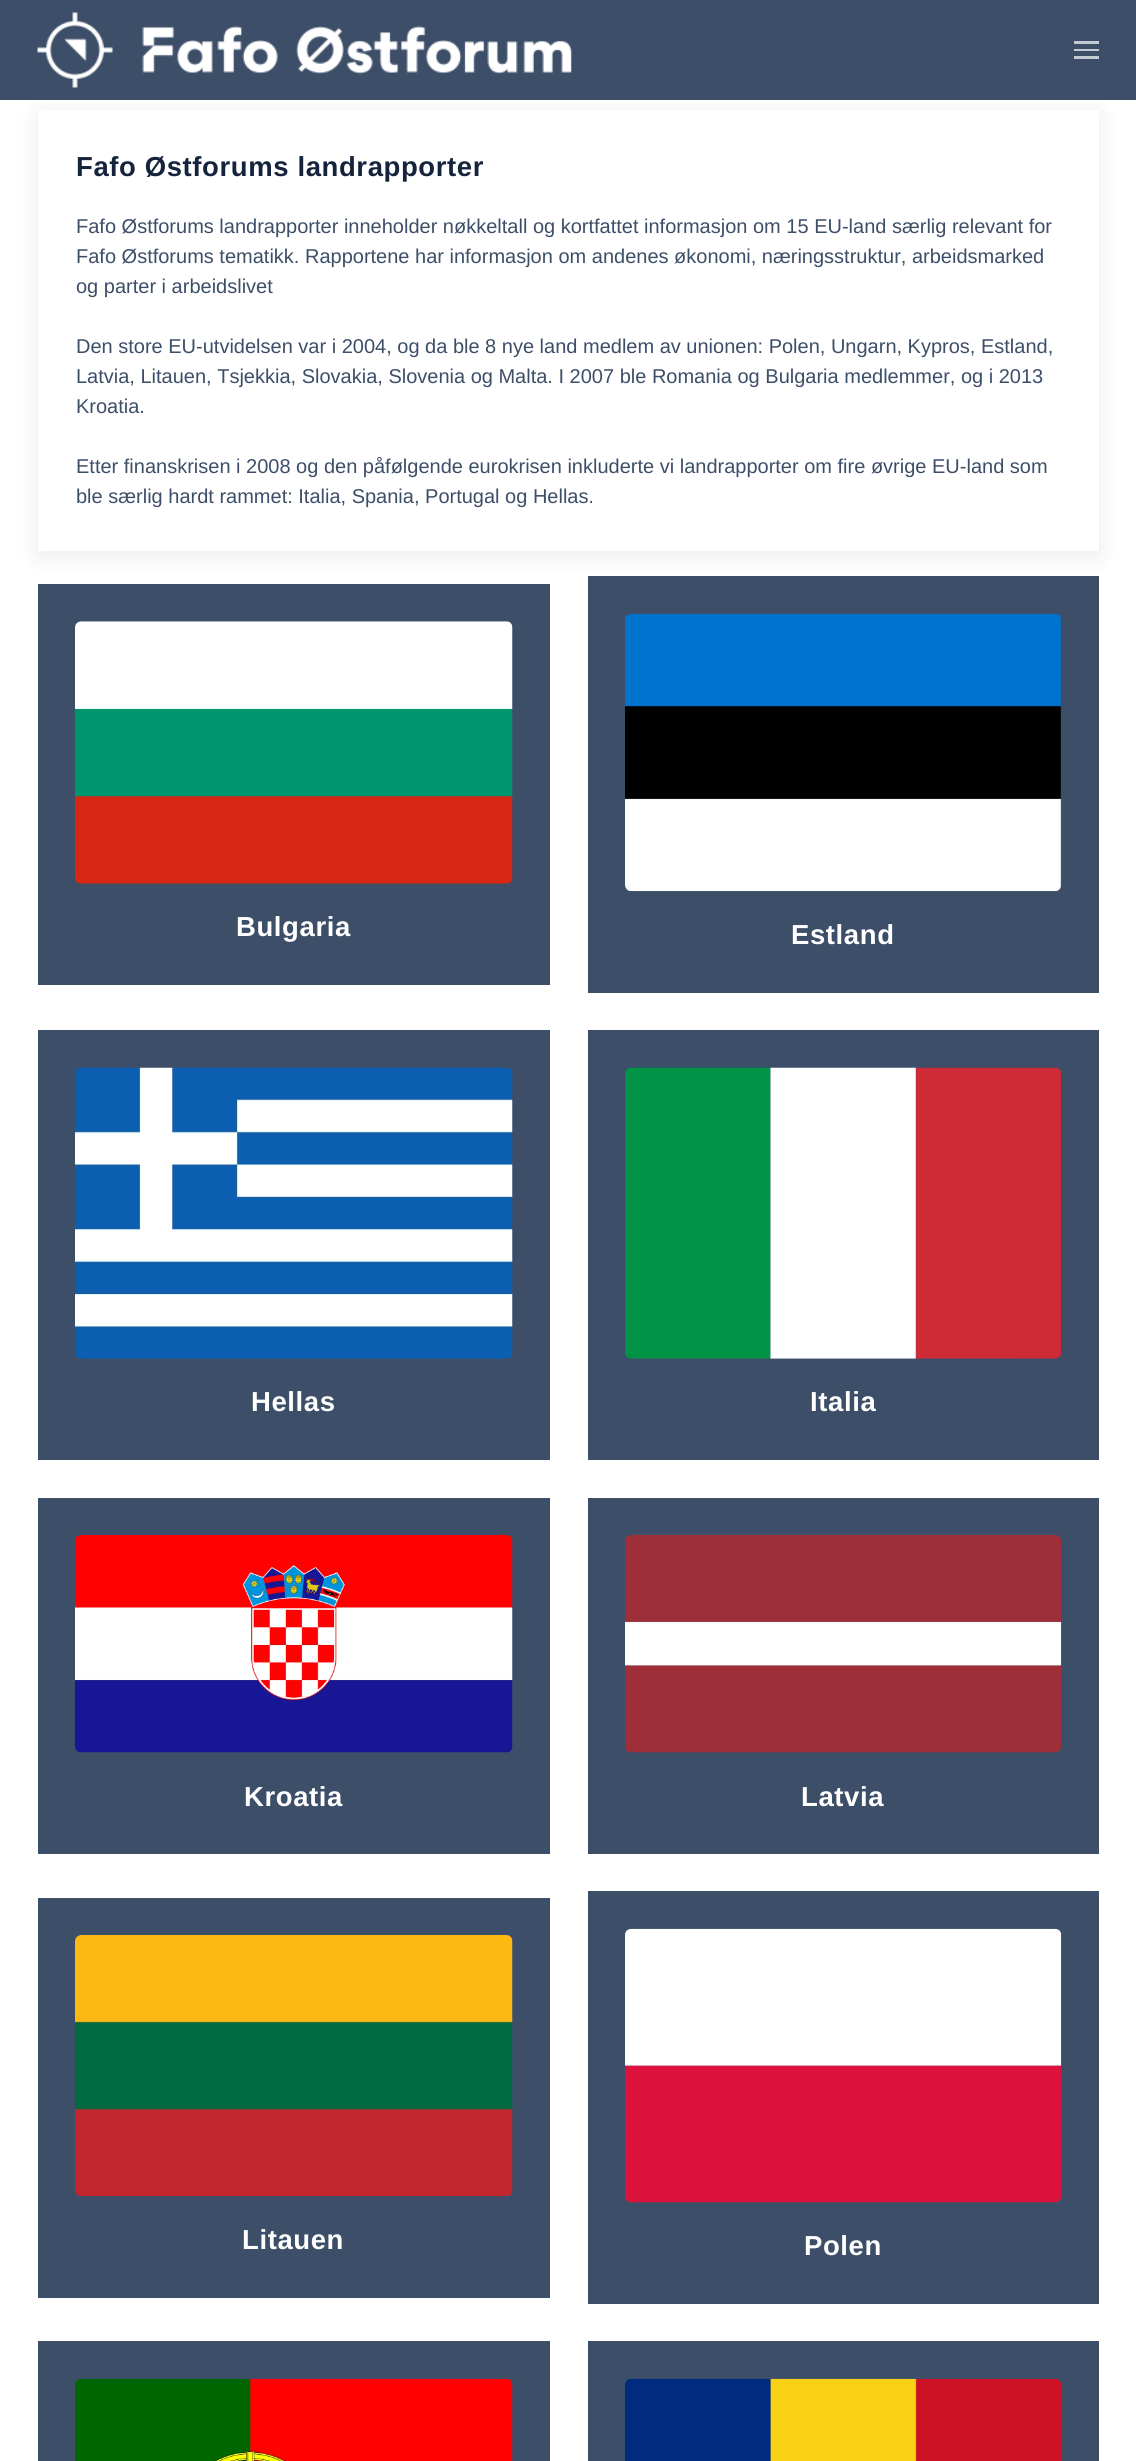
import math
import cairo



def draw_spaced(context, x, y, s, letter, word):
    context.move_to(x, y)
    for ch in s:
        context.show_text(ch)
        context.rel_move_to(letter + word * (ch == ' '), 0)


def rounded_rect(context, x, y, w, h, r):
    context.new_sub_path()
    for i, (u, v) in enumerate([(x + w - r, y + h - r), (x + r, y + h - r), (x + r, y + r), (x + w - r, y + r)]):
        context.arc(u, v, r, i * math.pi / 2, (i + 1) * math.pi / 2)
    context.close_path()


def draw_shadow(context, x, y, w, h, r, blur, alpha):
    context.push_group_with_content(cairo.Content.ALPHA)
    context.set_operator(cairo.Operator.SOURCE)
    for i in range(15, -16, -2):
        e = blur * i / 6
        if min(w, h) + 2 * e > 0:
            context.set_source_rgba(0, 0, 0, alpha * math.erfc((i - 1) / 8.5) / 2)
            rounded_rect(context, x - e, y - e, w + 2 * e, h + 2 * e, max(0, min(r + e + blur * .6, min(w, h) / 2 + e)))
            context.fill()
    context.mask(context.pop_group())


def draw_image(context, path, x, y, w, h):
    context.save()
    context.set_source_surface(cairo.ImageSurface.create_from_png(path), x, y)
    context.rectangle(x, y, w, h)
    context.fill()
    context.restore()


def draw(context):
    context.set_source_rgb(1, 1, 1)
    context.paint()
    context.set_source_rgb(61 / 255, 78 / 255, 105 / 255)
    context.rectangle(0, 0, 1136, 100)
    context.fill()
    context.save()
    context.set_fill_rule(cairo.FillRule.EVEN_ODD)
    context.new_path()
    context.move_to(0, 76)
    context.line_to(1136, 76)
    context.line_to(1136, 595)
    context.line_to(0, 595)
    context.close_path()
    context.move_to(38, 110)
    context.line_to(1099, 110)
    context.line_to(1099, 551)
    context.line_to(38, 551)
    context.close_path()
    context.clip()
    context.set_source_rgb(0, 0, 0)
    draw_shadow(context, 38, 115, 1061, 441, 0, 12.5, 0.08)
    context.restore()
    draw_image(context, "images/1.png", 37, 12, 535, 76)
    context.set_source_rgb(197 / 255, 202 / 255, 210 / 255)
    context.rectangle(1074, 41, 25, 3)
    context.fill()
    context.rectangle(1074, 49, 25, 2)
    context.fill()
    context.rectangle(1074, 56, 25, 3)
    context.fill()
    context.set_source_rgb(61 / 255, 78 / 255, 105 / 255)
    context.rectangle(38, 584, 512, 401)
    context.fill()
    draw_image(context, "images/2.png", 75, 621, 438, 263)
    context.rectangle(588, 576, 511, 417)
    context.fill()
    draw_image(context, "images/3.png", 625, 613, 437, 279)
    context.rectangle(38, 1030, 512, 430)
    context.fill()
    draw_image(context, "images/4.png", 75, 1067, 438, 292)
    context.rectangle(588, 1030, 511, 430)
    context.fill()
    draw_image(context, "images/5.png", 625, 1067, 437, 292)
    context.rectangle(38, 1498, 512, 356)
    context.fill()
    draw_image(context, "images/6.png", 75, 1535, 438, 218)
    context.rectangle(588, 1498, 511, 356)
    context.fill()
    draw_image(context, "images/7.png", 625, 1535, 437, 218)
    context.rectangle(38, 1898, 512, 400)
    context.fill()
    draw_image(context, "images/8.png", 75, 1935, 438, 262)
    context.rectangle(588, 1891, 511, 413)
    context.fill()
    draw_image(context, "images/9.png", 625, 1928, 437, 275)
    context.rectangle(38, 2341, 512, 120)
    context.fill()
    draw_image(context, "images/10.png", 75, 2378, 438, 83)
    context.rectangle(588, 2341, 511, 120)
    context.fill()
    draw_image(context, "images/11.png", 625, 2378, 437, 83)
    context.select_font_face("Liberation Sans", cairo.FontSlant.NORMAL, cairo.FontWeight.BOLD)
    context.set_font_size(27.5)
    context.set_source_rgb(21 / 255, 36 / 255, 60 / 255)
    draw_spaced(context, 76, 176, "Fafo Østforums landrapporter", 0.6, 0)
    context.select_font_face("Liberation Sans")
    context.set_font_size(20)
    context.set_source_rgb(61 / 255, 78 / 255, 105 / 255)
    context.move_to(76, 233)
    context.show_text("Fafo Østforums landrapporter inneholder nøkkeltall og kortfattet informasjon om 15 EU-land særlig relevant for")
    context.move_to(76, 263)
    context.show_text("Fafo Østforums tematikk. Rapportene har informasjon om andenes økonomi, næringsstruktur, arbeidsmarked")
    context.move_to(76, 293)
    context.show_text("og parter i arbeidslivet")
    context.move_to(76, 353)
    context.show_text("Den store EU-utvidelsen var i 2004, og da ble 8 nye land medlem av unionen: Polen, Ungarn, Kypros, Estland,")
    context.move_to(76, 383)
    context.show_text("Latvia, Litauen, Tsjekkia, Slovakia, Slovenia og Malta. I 2007 ble Romania og Bulgaria medlemmer, og i 2013")
    context.move_to(76, 413)
    context.show_text("Kroatia.")
    context.move_to(76, 473)
    context.show_text("Etter finanskrisen i 2008 og den påfølgende eurokrisen inkluderte vi landrapporter om fire øvrige EU-land som")
    context.move_to(76, 503)
    context.show_text("ble særlig hardt rammet: Italia, Spania, Portugal og Hellas.")
    context.select_font_face("Liberation Sans", cairo.FontSlant.NORMAL, cairo.FontWeight.BOLD)
    context.set_font_size(27.5)
    context.set_source_rgb(1, 1, 1)
    draw_spaced(context, 236, 936, "Bulgaria", 0.6, 0)
    draw_spaced(context, 791, 944, "Estland", 0.6, 0)
    draw_spaced(context, 251, 1411, "Hellas", 0.6, 0)
    draw_spaced(context, 810, 1411, "Italia", 0.6, 0)
    draw_spaced(context, 244, 1806, "Kroatia", 0.6, 0)
    draw_spaced(context, 801, 1806, "Latvia", 0.6, 0)
    draw_spaced(context, 242, 2249, "Litauen", 0.6, 0)
    draw_spaced(context, 804, 2255, "Polen", 0.6, 0)


surface = cairo.ImageSurface(cairo.Format.RGB24, 1136, 2461)
context = cairo.Context(surface)
options = cairo.FontOptions()
options.set_hint_metrics(cairo.HintMetrics.OFF)
options.set_hint_style(cairo.HintStyle.NONE)
context.set_font_options(options)
context.set_miter_limit(4)
draw(context)
surface.write_to_png("out.png")
